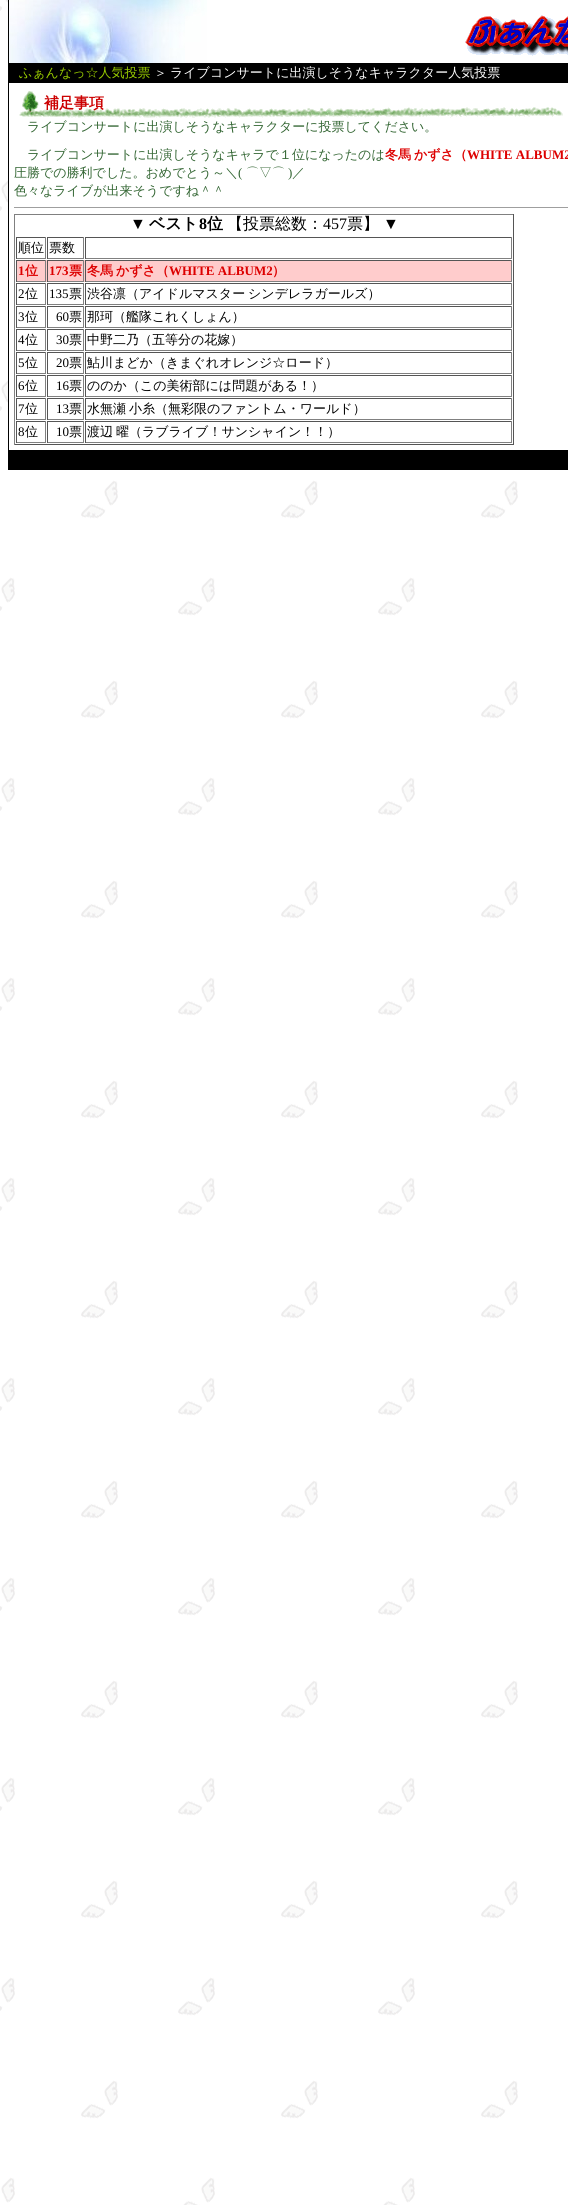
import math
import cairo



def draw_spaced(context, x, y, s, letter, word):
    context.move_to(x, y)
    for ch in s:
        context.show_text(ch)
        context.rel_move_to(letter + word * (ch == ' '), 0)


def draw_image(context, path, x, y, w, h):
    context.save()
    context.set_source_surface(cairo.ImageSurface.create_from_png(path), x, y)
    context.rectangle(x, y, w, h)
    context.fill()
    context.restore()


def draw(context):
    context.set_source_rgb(1, 1, 1)
    context.paint()
    draw_image(context, "images/1.png", 0, 0, 518, 2205)
    context.set_source_rgb(1, 1, 1)
    context.rectangle(207, 0, 204, 16)
    context.fill()
    context.set_source_rgb(0, 0, 0)
    context.rectangle(8, 0, 1, 470)
    context.fill()
    draw_image(context, "images/2.png", 9, 0, 198, 63)
    draw_image(context, "images/3.png", 465, 15, 103, 41)
    context.rectangle(9, 63, 559, 20)
    context.fill()
    context.set_source_rgb(1, 1, 1)
    context.rectangle(81, 83, 437, 36)
    context.fill()
    draw_image(context, "images/4.png", 19, 91, 544, 27)
    context.rectangle(9, 177, 509, 239)
    context.fill()
    context.set_source_rgb(159 / 255, 159 / 255, 159 / 255)
    context.rectangle(14, 207, 554, 1)
    context.fill()
    context.set_source_rgb(128 / 255, 128 / 255, 128 / 255)
    context.rectangle(14, 214, 500, 1)
    context.fill()
    context.set_source_rgb(85 / 255, 85 / 255, 85 / 255)
    context.rectangle(513, 214, 1, 231)
    context.fill()
    context.rectangle(14, 444, 500, 1)
    context.fill()
    context.set_source_rgb(128 / 255, 128 / 255, 128 / 255)
    context.rectangle(14, 214, 1, 231)
    context.fill()
    context.set_source_rgb(85 / 255, 85 / 255, 85 / 255)
    context.rectangle(16, 237, 30, 1)
    context.fill()
    context.set_source_rgb(128 / 255, 128 / 255, 128 / 255)
    context.rectangle(45, 237, 1, 22)
    context.fill()
    context.rectangle(16, 258, 30, 1)
    context.fill()
    context.set_source_rgb(85 / 255, 85 / 255, 85 / 255)
    context.rectangle(16, 237, 1, 22)
    context.fill()
    context.rectangle(47, 237, 37, 1)
    context.fill()
    context.set_source_rgb(128 / 255, 128 / 255, 128 / 255)
    context.rectangle(83, 237, 1, 22)
    context.fill()
    context.rectangle(47, 258, 37, 1)
    context.fill()
    context.set_source_rgb(85 / 255, 85 / 255, 85 / 255)
    context.rectangle(47, 237, 1, 22)
    context.fill()
    context.rectangle(85, 237, 427, 1)
    context.fill()
    context.set_source_rgb(128 / 255, 128 / 255, 128 / 255)
    context.rectangle(511, 237, 1, 22)
    context.fill()
    context.rectangle(85, 258, 427, 1)
    context.fill()
    context.set_source_rgb(85 / 255, 85 / 255, 85 / 255)
    context.rectangle(85, 237, 1, 22)
    context.fill()
    context.set_source_rgb(1, 204 / 255, 204 / 255)
    context.rectangle(17, 260, 494, 22)
    context.fill()
    context.set_source_rgb(85 / 255, 85 / 255, 85 / 255)
    context.rectangle(16, 260, 30, 1)
    context.fill()
    context.set_source_rgb(128 / 255, 128 / 255, 128 / 255)
    context.rectangle(45, 260, 1, 22)
    context.fill()
    context.rectangle(16, 281, 30, 1)
    context.fill()
    context.set_source_rgb(85 / 255, 85 / 255, 85 / 255)
    context.rectangle(16, 260, 1, 22)
    context.fill()
    context.rectangle(47, 260, 37, 1)
    context.fill()
    context.set_source_rgb(128 / 255, 128 / 255, 128 / 255)
    context.rectangle(83, 260, 1, 22)
    context.fill()
    context.rectangle(47, 281, 37, 1)
    context.fill()
    context.set_source_rgb(85 / 255, 85 / 255, 85 / 255)
    context.rectangle(47, 260, 1, 22)
    context.fill()
    context.rectangle(85, 260, 427, 1)
    context.fill()
    context.set_source_rgb(128 / 255, 128 / 255, 128 / 255)
    context.rectangle(511, 260, 1, 22)
    context.fill()
    context.rectangle(85, 281, 427, 1)
    context.fill()
    context.set_source_rgb(85 / 255, 85 / 255, 85 / 255)
    context.rectangle(85, 260, 1, 22)
    context.fill()
    context.rectangle(16, 283, 30, 1)
    context.fill()
    context.set_source_rgb(128 / 255, 128 / 255, 128 / 255)
    context.rectangle(45, 283, 1, 22)
    context.fill()
    context.rectangle(16, 304, 30, 1)
    context.fill()
    context.set_source_rgb(85 / 255, 85 / 255, 85 / 255)
    context.rectangle(16, 283, 1, 22)
    context.fill()
    context.rectangle(47, 283, 37, 1)
    context.fill()
    context.set_source_rgb(128 / 255, 128 / 255, 128 / 255)
    context.rectangle(83, 283, 1, 22)
    context.fill()
    context.rectangle(47, 304, 37, 1)
    context.fill()
    context.set_source_rgb(85 / 255, 85 / 255, 85 / 255)
    context.rectangle(47, 283, 1, 22)
    context.fill()
    context.rectangle(85, 283, 427, 1)
    context.fill()
    context.set_source_rgb(128 / 255, 128 / 255, 128 / 255)
    context.rectangle(511, 283, 1, 22)
    context.fill()
    context.rectangle(85, 304, 427, 1)
    context.fill()
    context.set_source_rgb(85 / 255, 85 / 255, 85 / 255)
    context.rectangle(85, 283, 1, 22)
    context.fill()
    context.rectangle(16, 306, 30, 1)
    context.fill()
    context.set_source_rgb(128 / 255, 128 / 255, 128 / 255)
    context.rectangle(45, 306, 1, 22)
    context.fill()
    context.rectangle(16, 327, 30, 1)
    context.fill()
    context.set_source_rgb(85 / 255, 85 / 255, 85 / 255)
    context.rectangle(16, 306, 1, 22)
    context.fill()
    context.rectangle(47, 306, 37, 1)
    context.fill()
    context.set_source_rgb(128 / 255, 128 / 255, 128 / 255)
    context.rectangle(83, 306, 1, 22)
    context.fill()
    context.rectangle(47, 327, 37, 1)
    context.fill()
    context.set_source_rgb(85 / 255, 85 / 255, 85 / 255)
    context.rectangle(47, 306, 1, 22)
    context.fill()
    context.rectangle(85, 306, 427, 1)
    context.fill()
    context.set_source_rgb(128 / 255, 128 / 255, 128 / 255)
    context.rectangle(511, 306, 1, 22)
    context.fill()
    context.rectangle(85, 327, 427, 1)
    context.fill()
    context.set_source_rgb(85 / 255, 85 / 255, 85 / 255)
    context.rectangle(85, 306, 1, 22)
    context.fill()
    context.rectangle(16, 329, 30, 1)
    context.fill()
    context.set_source_rgb(128 / 255, 128 / 255, 128 / 255)
    context.rectangle(45, 329, 1, 22)
    context.fill()
    context.rectangle(16, 350, 30, 1)
    context.fill()
    context.set_source_rgb(85 / 255, 85 / 255, 85 / 255)
    context.rectangle(16, 329, 1, 22)
    context.fill()
    context.rectangle(47, 329, 37, 1)
    context.fill()
    context.set_source_rgb(128 / 255, 128 / 255, 128 / 255)
    context.rectangle(83, 329, 1, 22)
    context.fill()
    context.rectangle(47, 350, 37, 1)
    context.fill()
    context.set_source_rgb(85 / 255, 85 / 255, 85 / 255)
    context.rectangle(47, 329, 1, 22)
    context.fill()
    context.rectangle(85, 329, 427, 1)
    context.fill()
    context.set_source_rgb(128 / 255, 128 / 255, 128 / 255)
    context.rectangle(511, 329, 1, 22)
    context.fill()
    context.rectangle(85, 350, 427, 1)
    context.fill()
    context.set_source_rgb(85 / 255, 85 / 255, 85 / 255)
    context.rectangle(85, 329, 1, 22)
    context.fill()
    context.rectangle(16, 352, 30, 1)
    context.fill()
    context.set_source_rgb(128 / 255, 128 / 255, 128 / 255)
    context.rectangle(45, 352, 1, 22)
    context.fill()
    context.rectangle(16, 373, 30, 1)
    context.fill()
    context.set_source_rgb(85 / 255, 85 / 255, 85 / 255)
    context.rectangle(16, 352, 1, 22)
    context.fill()
    context.rectangle(47, 352, 37, 1)
    context.fill()
    context.set_source_rgb(128 / 255, 128 / 255, 128 / 255)
    context.rectangle(83, 352, 1, 22)
    context.fill()
    context.rectangle(47, 373, 37, 1)
    context.fill()
    context.set_source_rgb(85 / 255, 85 / 255, 85 / 255)
    context.rectangle(47, 352, 1, 22)
    context.fill()
    context.rectangle(85, 352, 427, 1)
    context.fill()
    context.set_source_rgb(128 / 255, 128 / 255, 128 / 255)
    context.rectangle(511, 352, 1, 22)
    context.fill()
    context.rectangle(85, 373, 427, 1)
    context.fill()
    context.set_source_rgb(85 / 255, 85 / 255, 85 / 255)
    context.rectangle(85, 352, 1, 22)
    context.fill()
    context.rectangle(16, 375, 30, 1)
    context.fill()
    context.set_source_rgb(128 / 255, 128 / 255, 128 / 255)
    context.rectangle(45, 375, 1, 22)
    context.fill()
    context.rectangle(16, 396, 30, 1)
    context.fill()
    context.set_source_rgb(85 / 255, 85 / 255, 85 / 255)
    context.rectangle(16, 375, 1, 22)
    context.fill()
    context.rectangle(47, 375, 37, 1)
    context.fill()
    context.set_source_rgb(128 / 255, 128 / 255, 128 / 255)
    context.rectangle(83, 375, 1, 22)
    context.fill()
    context.rectangle(47, 396, 37, 1)
    context.fill()
    context.set_source_rgb(85 / 255, 85 / 255, 85 / 255)
    context.rectangle(47, 375, 1, 22)
    context.fill()
    context.rectangle(85, 375, 427, 1)
    context.fill()
    context.set_source_rgb(128 / 255, 128 / 255, 128 / 255)
    context.rectangle(511, 375, 1, 22)
    context.fill()
    context.rectangle(85, 396, 427, 1)
    context.fill()
    context.set_source_rgb(85 / 255, 85 / 255, 85 / 255)
    context.rectangle(85, 375, 1, 22)
    context.fill()
    context.rectangle(16, 398, 30, 1)
    context.fill()
    context.set_source_rgb(128 / 255, 128 / 255, 128 / 255)
    context.rectangle(45, 398, 1, 22)
    context.fill()
    context.rectangle(16, 419, 30, 1)
    context.fill()
    context.set_source_rgb(85 / 255, 85 / 255, 85 / 255)
    context.rectangle(16, 398, 1, 22)
    context.fill()
    context.rectangle(47, 398, 37, 1)
    context.fill()
    context.set_source_rgb(128 / 255, 128 / 255, 128 / 255)
    context.rectangle(83, 398, 1, 22)
    context.fill()
    context.rectangle(47, 419, 37, 1)
    context.fill()
    context.set_source_rgb(85 / 255, 85 / 255, 85 / 255)
    context.rectangle(47, 398, 1, 22)
    context.fill()
    context.rectangle(85, 398, 427, 1)
    context.fill()
    context.set_source_rgb(128 / 255, 128 / 255, 128 / 255)
    context.rectangle(511, 398, 1, 22)
    context.fill()
    context.rectangle(85, 419, 427, 1)
    context.fill()
    context.set_source_rgb(85 / 255, 85 / 255, 85 / 255)
    context.rectangle(85, 398, 1, 22)
    context.fill()
    context.rectangle(16, 421, 30, 1)
    context.fill()
    context.set_source_rgb(128 / 255, 128 / 255, 128 / 255)
    context.rectangle(45, 421, 1, 22)
    context.fill()
    context.rectangle(16, 442, 30, 1)
    context.fill()
    context.set_source_rgb(85 / 255, 85 / 255, 85 / 255)
    context.rectangle(16, 421, 1, 22)
    context.fill()
    context.rectangle(47, 421, 37, 1)
    context.fill()
    context.set_source_rgb(128 / 255, 128 / 255, 128 / 255)
    context.rectangle(83, 421, 1, 22)
    context.fill()
    context.rectangle(47, 442, 37, 1)
    context.fill()
    context.set_source_rgb(85 / 255, 85 / 255, 85 / 255)
    context.rectangle(47, 421, 1, 22)
    context.fill()
    context.rectangle(85, 421, 427, 1)
    context.fill()
    context.set_source_rgb(128 / 255, 128 / 255, 128 / 255)
    context.rectangle(511, 421, 1, 22)
    context.fill()
    context.rectangle(85, 442, 427, 1)
    context.fill()
    context.set_source_rgb(85 / 255, 85 / 255, 85 / 255)
    context.rectangle(85, 421, 1, 22)
    context.fill()
    context.set_source_rgb(0, 0, 0)
    context.rectangle(9, 450, 559, 20)
    context.fill()
    context.select_font_face("WenQuanYi Zen Hei Medium")
    context.set_font_size(13)
    context.set_source_rgb(153 / 255, 204 / 255, 0)
    context.move_to(19, 77)
    context.show_text("ふぁんなっ☆人気投票")
    context.set_source_rgb(1, 1, 1)
    context.move_to(154, 77)
    context.show_text("＞")
    context.move_to(170, 77)
    context.show_text("ライブコンサートに出演しそうなキャラクター人気投票")
    context.select_font_face("WenQuanYi Zen Hei", cairo.FontSlant.NORMAL, cairo.FontWeight.BOLD)
    context.set_font_size(15)
    context.set_source_rgb(204 / 255, 0, 0)
    context.move_to(44, 108)
    context.show_text("補足事項")
    context.select_font_face("WenQuanYi Zen Hei Medium")
    context.set_font_size(13)
    context.set_source_rgb(51 / 255, 102 / 255, 51 / 255)
    context.move_to(27, 131)
    context.show_text("ライブコンサートに出演しそうなキャラクターに投票してください。")
    context.move_to(27, 159)
    context.show_text("ライブコンサートに出演しそうなキャラで１位になったのは")
    context.select_font_face("WenQuanYi Zen Hei", cairo.FontSlant.NORMAL, cairo.FontWeight.BOLD)
    context.set_source_rgb(221 / 255, 0, 0)
    context.move_to(385, 159)
    context.show_text("冬馬")
    context.move_to(414, 159)
    context.show_text("かずさ（")
    context.select_font_face("Liberation Serif", cairo.FontSlant.NORMAL, cairo.FontWeight.BOLD)
    context.move_to(467, 159)
    context.show_text("WHITE ALBUM2")
    context.select_font_face("WenQuanYi Zen Hei Medium")
    context.set_source_rgb(51 / 255, 102 / 255, 51 / 255)
    context.move_to(14, 177)
    context.show_text("圧勝での勝利でした。おめでとう～＼")
    context.select_font_face("Liberation Serif")
    context.move_to(238, 177)
    context.show_text("(")
    context.select_font_face("WenQuanYi Zen Hei Medium")
    context.move_to(246, 177)
    context.show_text("⌒▽⌒")
    context.select_font_face("Liberation Serif")
    context.move_to(288, 177)
    context.show_text(")")
    context.select_font_face("WenQuanYi Zen Hei Medium")
    context.move_to(292, 177)
    context.show_text("／")
    context.move_to(14, 195)
    context.show_text("色々なライブが出来そうですね＾＾")
    context.select_font_face("Liberation Serif")
    context.set_font_size(16)
    context.set_source_rgb(0, 0, 0)
    context.move_to(130, 229)
    context.show_text("▼")
    context.select_font_face("WenQuanYi Zen Hei", cairo.FontSlant.NORMAL, cairo.FontWeight.BOLD)
    context.move_to(149, 229)
    context.show_text("ベスト")
    context.select_font_face("Liberation Serif", cairo.FontSlant.NORMAL, cairo.FontWeight.BOLD)
    context.move_to(199, 229)
    context.show_text("8")
    context.select_font_face("WenQuanYi Zen Hei", cairo.FontSlant.NORMAL, cairo.FontWeight.BOLD)
    context.move_to(207, 229)
    context.show_text("位")
    context.select_font_face("WenQuanYi Zen Hei Medium")
    context.move_to(227, 229)
    context.show_text("【投票総数：")
    context.select_font_face("Liberation Serif")
    context.move_to(323, 229)
    context.show_text("457")
    context.select_font_face("WenQuanYi Zen Hei Medium")
    context.move_to(347, 229)
    context.show_text("票】")
    context.select_font_face("Liberation Serif")
    context.move_to(383, 229)
    context.show_text("▼")
    context.select_font_face("WenQuanYi Zen Hei Medium")
    context.set_font_size(13)
    context.move_to(18, 252)
    context.show_text("順位")
    context.move_to(49, 252)
    context.show_text("票数")
    context.select_font_face("Liberation Serif", cairo.FontSlant.NORMAL, cairo.FontWeight.BOLD)
    context.set_source_rgb(221 / 255, 0, 0)
    context.move_to(18, 275)
    context.show_text("1")
    context.select_font_face("WenQuanYi Zen Hei", cairo.FontSlant.NORMAL, cairo.FontWeight.BOLD)
    context.move_to(25, 275)
    context.show_text("位")
    context.select_font_face("Liberation Serif", cairo.FontSlant.NORMAL, cairo.FontWeight.BOLD)
    context.move_to(49, 275)
    context.show_text("173")
    context.select_font_face("WenQuanYi Zen Hei", cairo.FontSlant.NORMAL, cairo.FontWeight.BOLD)
    context.move_to(69, 275)
    context.show_text("票")
    context.move_to(87, 275)
    context.show_text("冬馬")
    context.move_to(116, 275)
    context.show_text("かずさ（")
    context.select_font_face("Liberation Serif", cairo.FontSlant.NORMAL, cairo.FontWeight.BOLD)
    context.move_to(169, 275)
    context.show_text("WHITE ALBUM2")
    context.select_font_face("WenQuanYi Zen Hei", cairo.FontSlant.NORMAL, cairo.FontWeight.BOLD)
    context.move_to(272, 275)
    context.show_text("）")
    context.select_font_face("Liberation Serif")
    context.set_source_rgb(0, 0, 0)
    context.move_to(18, 298)
    context.show_text("2")
    context.select_font_face("WenQuanYi Zen Hei Medium")
    context.move_to(25, 298)
    context.show_text("位")
    context.select_font_face("Liberation Serif")
    context.move_to(49, 298)
    context.show_text("135")
    context.select_font_face("WenQuanYi Zen Hei Medium")
    context.move_to(69, 298)
    context.show_text("票")
    draw_spaced(context, 87, 298, "渋谷凛（アイドルマスター シンデレラガールズ）", 0, -1)
    context.select_font_face("Liberation Serif")
    context.move_to(18, 321)
    context.show_text("3")
    context.select_font_face("WenQuanYi Zen Hei Medium")
    context.move_to(25, 321)
    context.show_text("位")
    context.select_font_face("Liberation Serif")
    context.move_to(56, 321)
    context.show_text("60")
    context.select_font_face("WenQuanYi Zen Hei Medium")
    context.move_to(69, 321)
    context.show_text("票")
    context.move_to(87, 321)
    context.show_text("那珂（艦隊これくしょん）")
    context.select_font_face("Liberation Serif")
    context.move_to(18, 344)
    context.show_text("4")
    context.select_font_face("WenQuanYi Zen Hei Medium")
    context.move_to(25, 344)
    context.show_text("位")
    context.select_font_face("Liberation Serif")
    context.move_to(56, 344)
    context.show_text("30")
    context.select_font_face("WenQuanYi Zen Hei Medium")
    context.move_to(69, 344)
    context.show_text("票")
    context.move_to(87, 344)
    context.show_text("中野二乃（五等分の花嫁）")
    context.select_font_face("Liberation Serif")
    context.move_to(18, 367)
    context.show_text("5")
    context.select_font_face("WenQuanYi Zen Hei Medium")
    context.move_to(25, 367)
    context.show_text("位")
    context.select_font_face("Liberation Serif")
    context.move_to(56, 367)
    context.show_text("20")
    context.select_font_face("WenQuanYi Zen Hei Medium")
    context.move_to(69, 367)
    context.show_text("票")
    context.move_to(87, 367)
    context.show_text("鮎川まどか（きまぐれオレンジ☆ロード）")
    context.select_font_face("Liberation Serif")
    context.move_to(18, 390)
    context.show_text("6")
    context.select_font_face("WenQuanYi Zen Hei Medium")
    context.move_to(25, 390)
    context.show_text("位")
    context.select_font_face("Liberation Serif")
    context.move_to(56, 390)
    context.show_text("16")
    context.select_font_face("WenQuanYi Zen Hei Medium")
    context.move_to(69, 390)
    context.show_text("票")
    context.move_to(87, 390)
    context.show_text("ののか（この美術部には問題がある！）")
    context.select_font_face("Liberation Serif")
    context.move_to(18, 413)
    context.show_text("7")
    context.select_font_face("WenQuanYi Zen Hei Medium")
    context.move_to(25, 413)
    context.show_text("位")
    context.select_font_face("Liberation Serif")
    context.move_to(56, 413)
    context.show_text("13")
    context.select_font_face("WenQuanYi Zen Hei Medium")
    context.move_to(69, 413)
    context.show_text("票")
    draw_spaced(context, 87, 413, "水無瀬 小糸（無彩限のファントム・ワールド）", 0, -1)
    context.select_font_face("Liberation Serif")
    context.move_to(18, 436)
    context.show_text("8")
    context.select_font_face("WenQuanYi Zen Hei Medium")
    context.move_to(25, 436)
    context.show_text("位")
    context.select_font_face("Liberation Serif")
    context.move_to(56, 436)
    context.show_text("10")
    context.select_font_face("WenQuanYi Zen Hei Medium")
    context.move_to(69, 436)
    context.show_text("票")
    draw_spaced(context, 87, 436, "渡辺 曜（ラブライブ！サンシャイン！！）", 0, -1)


surface = cairo.ImageSurface(cairo.Format.RGB24, 568, 2205)
context = cairo.Context(surface)
options = cairo.FontOptions()
options.set_hint_metrics(cairo.HintMetrics.OFF)
options.set_hint_style(cairo.HintStyle.NONE)
context.set_font_options(options)
context.set_miter_limit(4)
draw(context)
surface.write_to_png("out.png")
